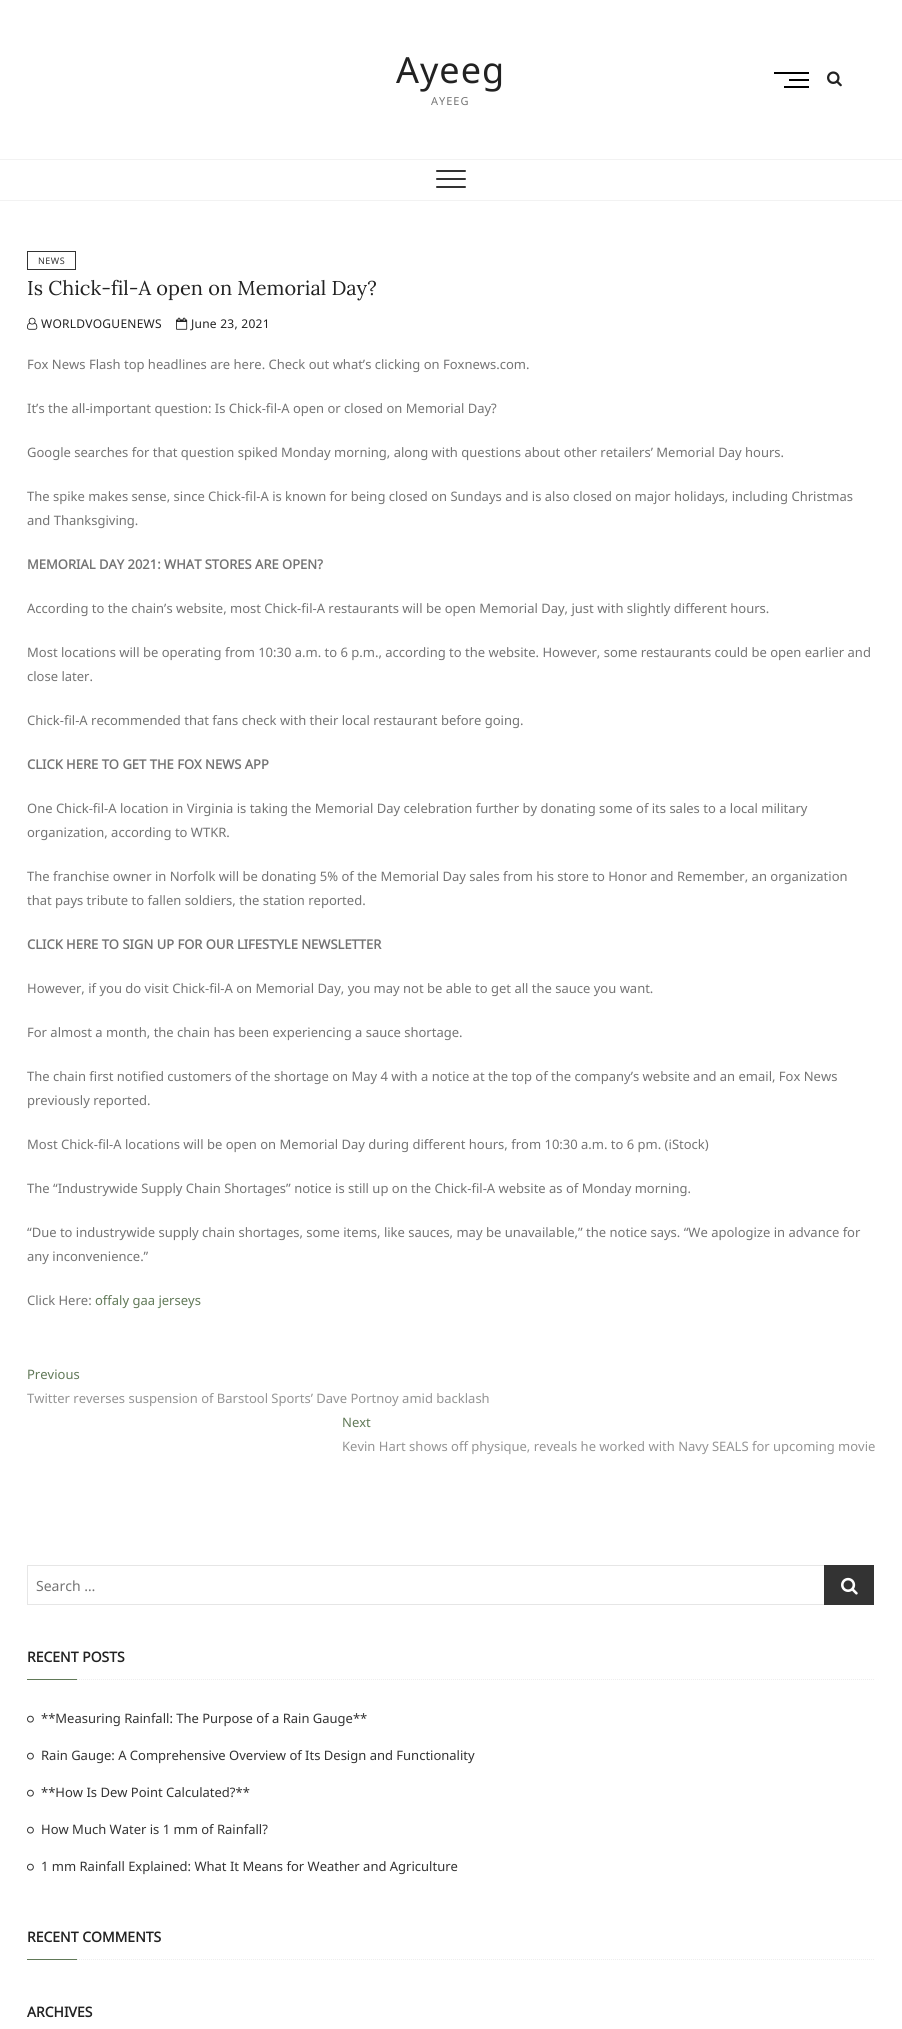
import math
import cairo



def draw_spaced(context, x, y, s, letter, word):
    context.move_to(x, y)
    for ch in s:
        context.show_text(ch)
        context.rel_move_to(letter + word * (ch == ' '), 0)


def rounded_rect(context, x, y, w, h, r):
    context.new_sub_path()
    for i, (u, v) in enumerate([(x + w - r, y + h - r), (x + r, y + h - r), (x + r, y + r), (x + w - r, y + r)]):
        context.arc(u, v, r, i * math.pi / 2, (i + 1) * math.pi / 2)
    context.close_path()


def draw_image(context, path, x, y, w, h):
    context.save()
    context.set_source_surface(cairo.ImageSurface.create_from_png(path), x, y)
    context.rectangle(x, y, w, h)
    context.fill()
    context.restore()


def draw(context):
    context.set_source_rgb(1, 1, 1)
    context.paint()
    context.set_source_rgb(0, 0, 0)
    context.rectangle(789, 79, 20, 2)
    context.fill()
    context.rectangle(774, 72, 35, 2)
    context.fill()
    context.rectangle(784, 86, 25, 2)
    context.fill()
    draw_image(context, "images/1.png", 827, 71, 15, 16)
    context.set_source_rgb(242 / 255, 242 / 255, 242 / 255)
    context.rectangle(0, 159, 902, 1)
    context.fill()
    context.rectangle(0, 200, 902, 1)
    context.fill()
    context.set_source_rgb(51 / 255, 51 / 255, 51 / 255)
    rounded_rect(context, 436, 178, 30, 2, 1)
    context.fill()
    rounded_rect(context, 436, 170, 30, 2, 1)
    context.fill()
    rounded_rect(context, 436, 186, 30, 2, 1)
    context.fill()
    context.rectangle(27.5, 251.5, 48, 18)
    context.set_line_width(1)
    context.stroke()
    draw_image(context, "images/2.png", 27, 317, 11, 13)
    draw_image(context, "images/3.png", 176, 317, 12, 13)
    context.rectangle(27.5, 1565.5, 797, 39)
    context.set_source_rgb(230 / 255, 230 / 255, 230 / 255)
    context.stroke()
    context.set_source_rgb(51 / 255, 51 / 255, 51 / 255)
    context.rectangle(824, 1565, 50, 40)
    context.fill()
    draw_image(context, "images/4.png", 841, 1577, 17, 18)
    context.new_path()
    context.move_to(27, 1679.5)
    context.line_to(875, 1679.5)
    context.set_source_rgb(238 / 255, 238 / 255, 238 / 255)
    context.set_dash([1, 1])
    context.stroke()
    context.set_source_rgb(97 / 255, 121 / 255, 88 / 255)
    context.rectangle(27, 1679, 50, 1)
    context.fill()
    draw_image(context, "images/5.png", 27, 1715, 7, 8)
    draw_image(context, "images/5.png", 27, 1752, 7, 8)
    draw_image(context, "images/5.png", 27, 1789, 7, 8)
    draw_image(context, "images/5.png", 27, 1826, 7, 8)
    draw_image(context, "images/5.png", 27, 1863, 7, 8)
    context.new_path()
    context.move_to(27, 1959.5)
    context.line_to(875, 1959.5)
    context.set_source_rgb(238 / 255, 238 / 255, 238 / 255)
    context.stroke()
    context.set_source_rgb(97 / 255, 121 / 255, 88 / 255)
    context.rectangle(27, 1959, 50, 1)
    context.fill()
    context.select_font_face("Noto Sans")
    context.set_font_size(36)
    context.set_source_rgb(34 / 255, 34 / 255, 34 / 255)
    draw_spaced(context, 396, 83, "Ayeeg", 1, 0)
    context.set_font_size(11)
    context.set_source_rgb(116 / 255, 116 / 255, 116 / 255)
    draw_spaced(context, 431, 105, "AYEEG", 1, 0)
    context.set_font_size(9)
    context.set_source_rgb(51 / 255, 51 / 255, 51 / 255)
    draw_spaced(context, 38, 264, "NEWS", 0.5, 0)
    context.select_font_face("Lora")
    context.set_font_size(20)
    context.set_source_rgb(34 / 255, 34 / 255, 34 / 255)
    context.move_to(27, 295)
    context.show_text("Is Chick-fil-A open on Memorial Day?")
    context.select_font_face("Noto Sans")
    context.set_font_size(12)
    draw_spaced(context, 41, 328, "WORLDVOGUENEWS", 0.25, 0)
    draw_spaced(context, 191, 328, "June 23, 2021", 0.25, 0)
    context.set_font_size(13)
    context.set_source_rgb(116 / 255, 116 / 255, 116 / 255)
    context.move_to(27, 369)
    context.show_text("Fox News Flash top headlines are here. Check out what’s clicking on Foxnews.com.")
    context.move_to(27, 413)
    context.show_text("It’s the all-important question: Is Chick-fil-A open or closed on Memorial Day?")
    context.move_to(27, 457)
    context.show_text("Google searches for that question spiked Monday morning, along with questions about other retailers’ Memorial Day hours.")
    context.move_to(27, 501)
    context.show_text("The spike makes sense, since Chick-fil-A is known for being closed on Sundays and is also closed on major holidays, including Christmas")
    context.move_to(27, 525)
    context.show_text("and Thanksgiving.")
    context.select_font_face("Noto Sans", cairo.FontSlant.NORMAL, cairo.FontWeight.BOLD)
    context.move_to(27, 569)
    context.show_text("MEMORIAL DAY 2021: WHAT STORES ARE OPEN?")
    context.select_font_face("Noto Sans")
    context.move_to(27, 613)
    context.show_text("According to the chain’s website, most Chick-fil-A restaurants will be open Memorial Day, just with slightly different hours.")
    context.move_to(27, 657)
    context.show_text("Most locations will be operating from 10:30 a.m. to 6 p.m., according to the website. However, some restaurants could be open earlier and")
    context.move_to(27, 681)
    context.show_text("close later.")
    context.move_to(27, 725)
    context.show_text("Chick-fil-A recommended that fans check with their local restaurant before going.")
    context.select_font_face("Noto Sans", cairo.FontSlant.NORMAL, cairo.FontWeight.BOLD)
    context.move_to(27, 769)
    context.show_text("CLICK HERE TO GET THE FOX NEWS APP")
    context.select_font_face("Noto Sans")
    context.move_to(27, 813)
    context.show_text("One Chick-fil-A location in Virginia is taking the Memorial Day celebration further by donating some of its sales to a local military")
    context.move_to(27, 837)
    context.show_text("organization, according to WTKR.")
    context.move_to(27, 881)
    context.show_text("The franchise owner in Norfolk will be donating 5% of the Memorial Day sales from his store to Honor and Remember, an organization")
    context.move_to(27, 905)
    context.show_text("that pays tribute to fallen soldiers, the station reported.")
    context.select_font_face("Noto Sans", cairo.FontSlant.NORMAL, cairo.FontWeight.BOLD)
    context.move_to(27, 949)
    context.show_text("CLICK HERE TO SIGN UP FOR OUR LIFESTYLE NEWSLETTER")
    context.select_font_face("Noto Sans")
    context.move_to(27, 993)
    context.show_text("However, if you do visit Chick-fil-A on Memorial Day, you may not be able to get all the sauce you want.")
    context.move_to(27, 1037)
    context.show_text("For almost a month, the chain has been experiencing a sauce shortage.")
    context.move_to(27, 1081)
    context.show_text("The chain first notified customers of the shortage on May 4 with a notice at the top of the company’s website and an email, Fox News")
    context.move_to(27, 1105)
    context.show_text("previously reported.")
    context.move_to(27, 1149)
    context.show_text("Most Chick-fil-A locations will be open on Memorial Day during different hours, from 10:30 a.m. to 6 pm. (iStock)")
    context.move_to(27, 1193)
    context.show_text("The “Industrywide Supply Chain Shortages” notice is still up on the Chick-fil-A website as of Monday morning.")
    context.move_to(27, 1237)
    context.show_text("“Due to industrywide supply chain shortages, some items, like sauces, may be unavailable,” the notice says. “We apologize in advance for")
    context.move_to(27, 1261)
    context.show_text("any inconvenience.”")
    context.move_to(27, 1305)
    context.show_text("Click Here:")
    context.set_source_rgb(97 / 255, 121 / 255, 88 / 255)
    context.move_to(95, 1305)
    context.show_text("offaly gaa jerseys")
    context.move_to(27, 1379)
    context.show_text("Previous")
    context.set_source_rgb(148 / 255, 148 / 255, 148 / 255)
    context.move_to(27, 1403)
    context.show_text("Twitter reverses suspension of Barstool Sports’ Dave Portnoy amid backlash")
    context.set_source_rgb(97 / 255, 121 / 255, 88 / 255)
    context.move_to(342, 1427)
    context.show_text("Next")
    context.set_source_rgb(148 / 255, 148 / 255, 148 / 255)
    context.move_to(342, 1451)
    context.show_text("Kevin Hart shows off physique, reveals he worked with Navy SEALS for upcoming movie")
    context.set_font_size(14)
    context.set_source_rgb(116 / 255, 116 / 255, 116 / 255)
    context.move_to(36, 1591)
    context.show_text("Search …")
    context.select_font_face("Noto Sans", cairo.FontSlant.NORMAL, cairo.FontWeight.BOLD)
    context.set_source_rgb(34 / 255, 34 / 255, 34 / 255)
    context.move_to(27, 1662)
    context.show_text("RECENT POSTS")
    context.select_font_face("Noto Sans")
    context.set_font_size(13)
    context.set_source_rgb(51 / 255, 51 / 255, 51 / 255)
    context.move_to(41, 1723)
    context.show_text("**Measuring Rainfall: The Purpose of a Rain Gauge**")
    context.move_to(41, 1760)
    context.show_text("Rain Gauge: A Comprehensive Overview of Its Design and Functionality")
    context.move_to(41, 1797)
    context.show_text("**How Is Dew Point Calculated?**")
    context.move_to(41, 1834)
    context.show_text("How Much Water is 1 mm of Rainfall?")
    context.move_to(41, 1871)
    context.show_text("1 mm Rainfall Explained: What It Means for Weather and Agriculture")
    context.select_font_face("Noto Sans", cairo.FontSlant.NORMAL, cairo.FontWeight.BOLD)
    context.set_font_size(14)
    context.set_source_rgb(34 / 255, 34 / 255, 34 / 255)
    context.move_to(27, 1942)
    context.show_text("RECENT COMMENTS")
    context.move_to(27, 2017)
    context.show_text("ARCHIVES")


surface = cairo.ImageSurface(cairo.Format.RGB24, 902, 2029)
context = cairo.Context(surface)
options = cairo.FontOptions()
options.set_hint_metrics(cairo.HintMetrics.OFF)
options.set_hint_style(cairo.HintStyle.NONE)
context.set_font_options(options)
context.set_miter_limit(4)
draw(context)
surface.write_to_png("out.png")
